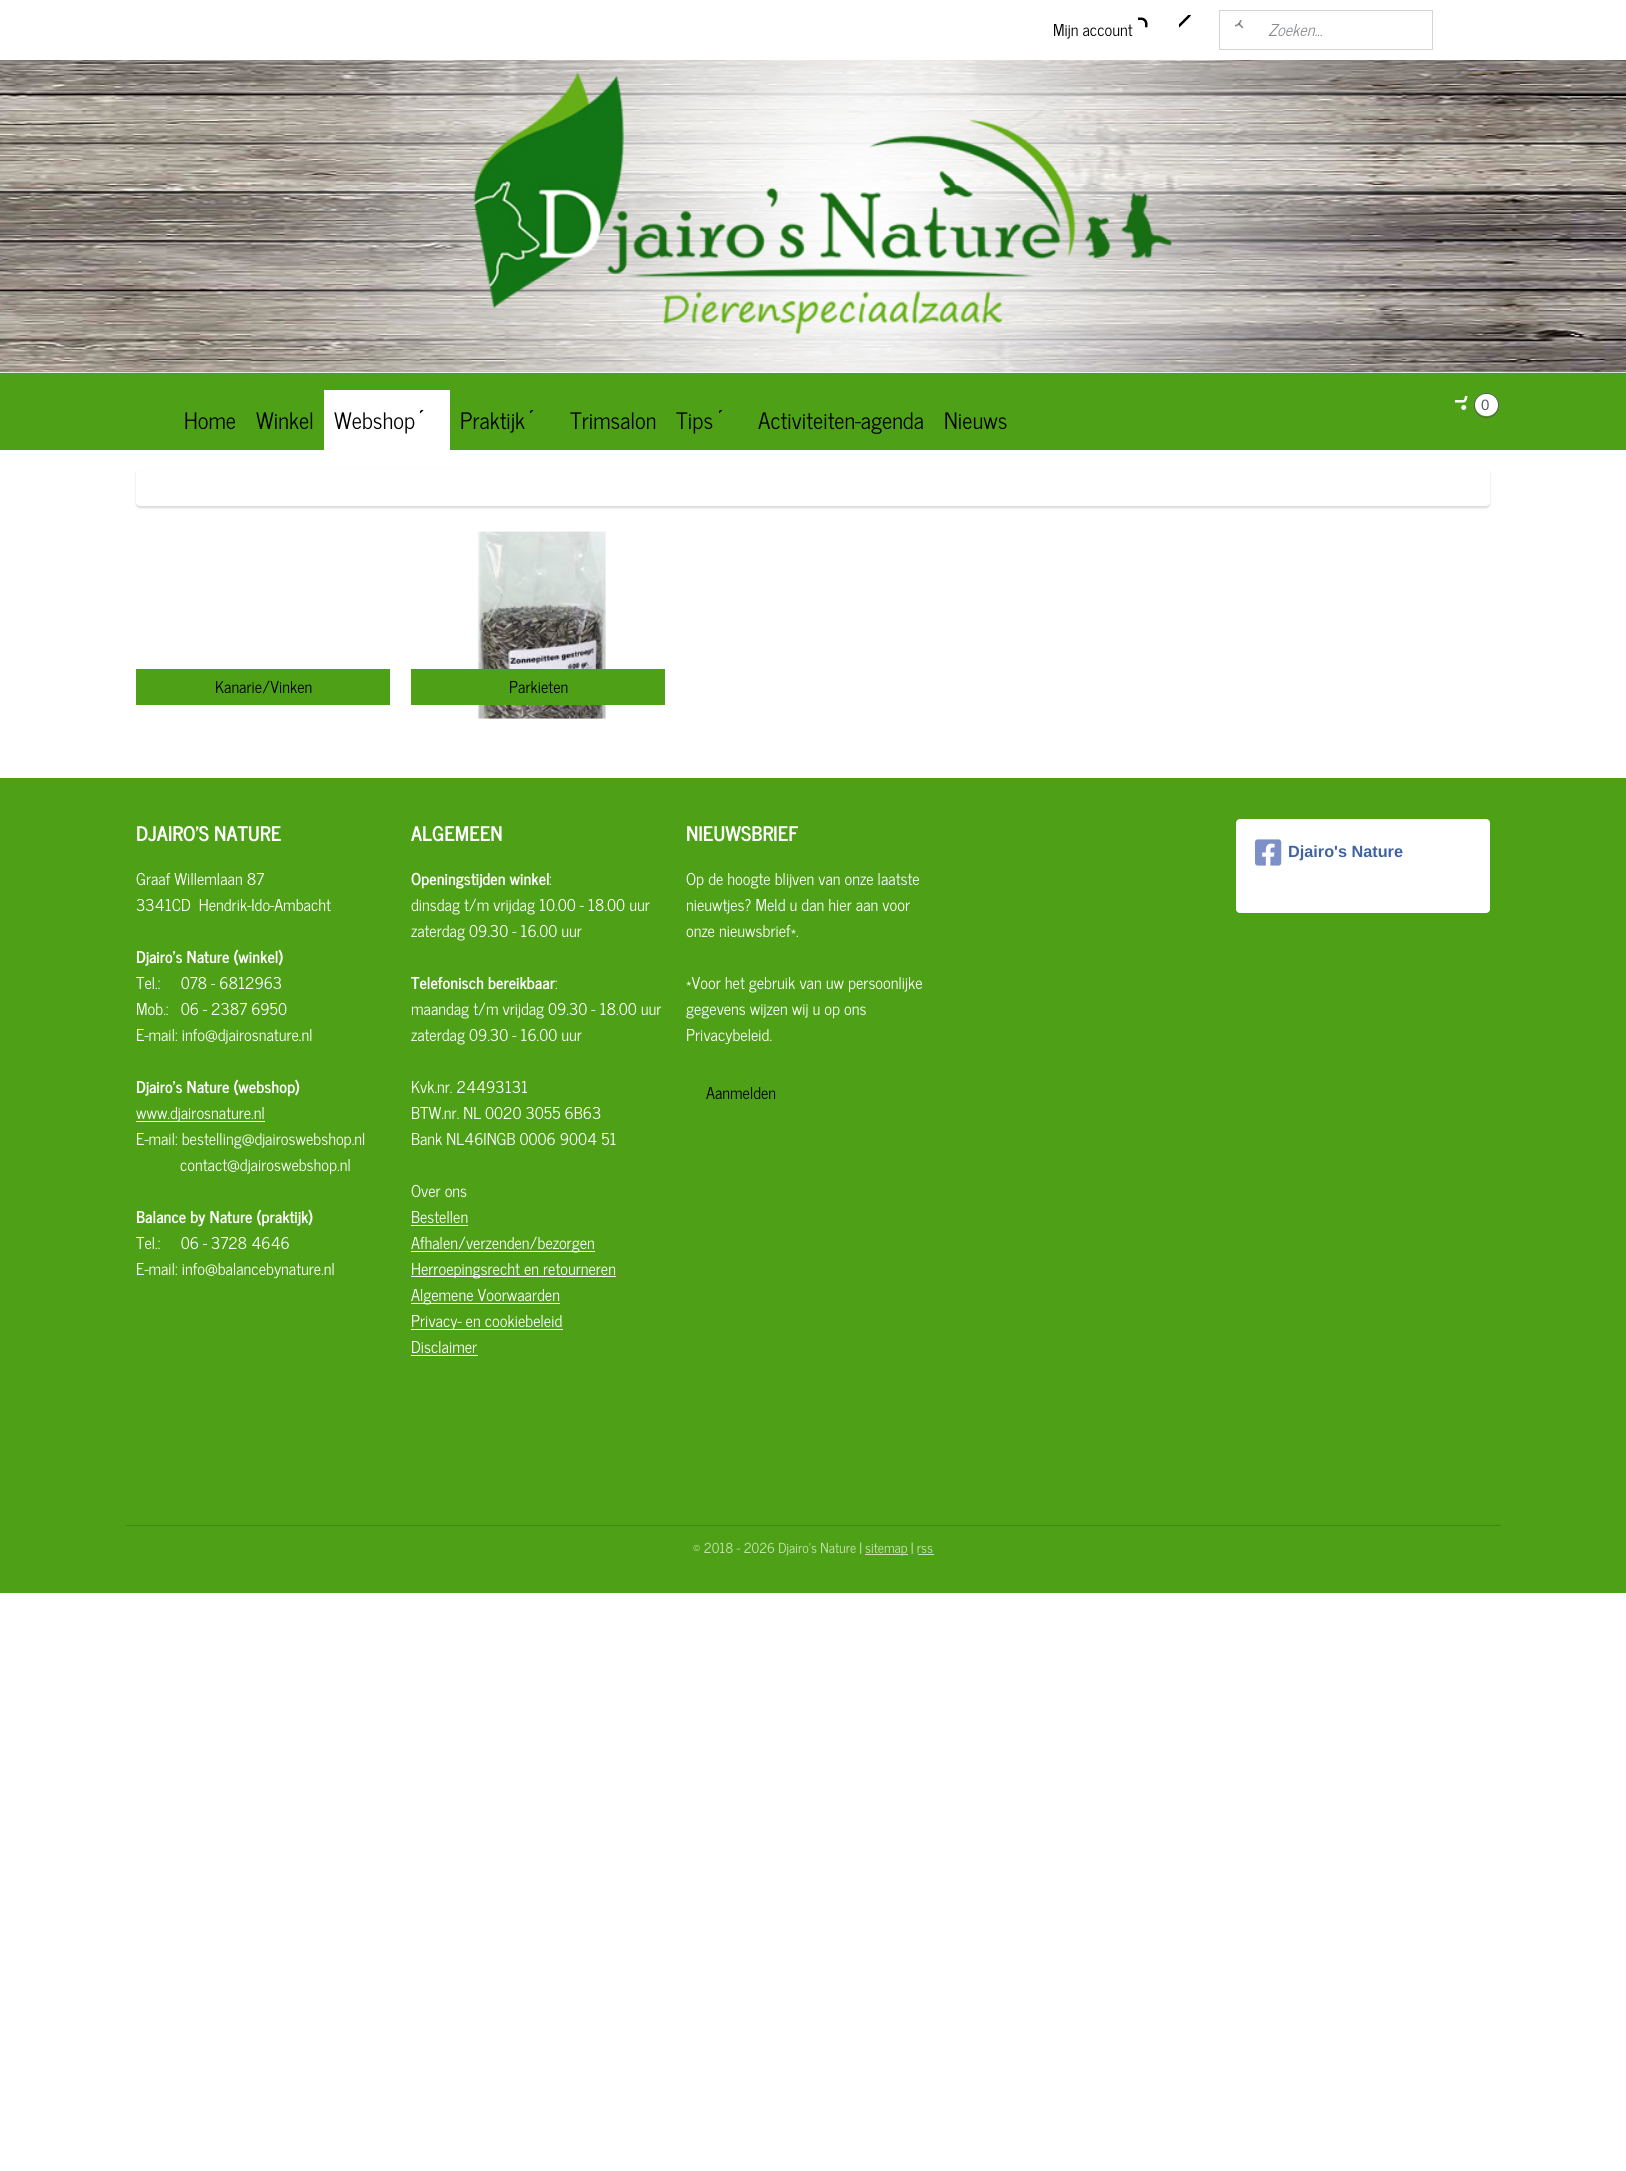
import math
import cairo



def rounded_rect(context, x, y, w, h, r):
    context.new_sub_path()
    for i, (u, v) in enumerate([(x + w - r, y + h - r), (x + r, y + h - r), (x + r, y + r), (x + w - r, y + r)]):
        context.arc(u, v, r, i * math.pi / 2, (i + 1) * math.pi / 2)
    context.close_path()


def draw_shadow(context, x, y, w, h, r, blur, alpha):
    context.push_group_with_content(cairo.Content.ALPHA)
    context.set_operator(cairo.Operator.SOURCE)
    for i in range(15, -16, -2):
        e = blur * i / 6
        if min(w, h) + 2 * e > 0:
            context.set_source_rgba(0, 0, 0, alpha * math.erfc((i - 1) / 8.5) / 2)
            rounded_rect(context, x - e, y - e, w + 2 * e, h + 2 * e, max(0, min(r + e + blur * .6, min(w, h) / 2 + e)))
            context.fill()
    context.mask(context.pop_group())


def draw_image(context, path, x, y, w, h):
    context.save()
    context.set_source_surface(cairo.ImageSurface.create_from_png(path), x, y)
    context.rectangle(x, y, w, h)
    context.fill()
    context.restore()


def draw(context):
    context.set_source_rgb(1, 1, 1)
    context.paint()
    draw_image(context, "images/1.png", 1179, 15, 13, 13)
    draw_image(context, "images/2.png", 1138, 17, 10, 11)
    context.rectangle(1219.5, 10.5, 213, 39)
    context.set_source_rgb(211 / 255, 213 / 255, 217 / 255)
    context.set_line_width(1)
    context.stroke()
    draw_image(context, "images/3.png", 1235, 20, 9, 9)
    draw_image(context, "images/4.png", 0, 60, 1626, 313)
    context.set_source_rgb(78 / 255, 161 / 255, 22 / 255)
    context.rectangle(0, 373, 1626, 77)
    context.fill()
    draw_image(context, "images/5.png", 1455, 396, 13, 14)
    context.arc(1486.5, 405.5, 12, 0, 2 * math.pi)
    context.set_source_rgb(87 / 255, 91 / 255, 98 / 255)
    context.stroke()
    context.set_source_rgb(1, 1, 1)
    rounded_rect(context, 1475, 394, 23, 22, 11)
    context.fill()
    context.rectangle(324, 390, 126, 60)
    context.fill()
    draw_image(context, "images/6.png", 420, 410, 4, 4)
    draw_image(context, "images/7.png", 530, 410, 4, 4)
    draw_image(context, "images/8.png", 719, 410, 4, 4)
    context.set_source_rgb(0, 0, 0)
    draw_shadow(context, 136, 470, 1354, 38, 4, 1, 0.15)
    context.set_source_rgb(1, 1, 1)
    rounded_rect(context, 136, 469, 1354, 37, 4)
    context.fill()
    context.set_source_rgb(78 / 255, 161 / 255, 22 / 255)
    context.rectangle(136, 669, 254, 36)
    context.fill()
    draw_image(context, "images/9.png", 476, 531, 130, 188)
    context.rectangle(411, 669, 254, 36)
    context.fill()
    context.rectangle(0, 778, 1626, 815)
    context.fill()
    context.set_source_rgb(1, 1, 1)
    context.rectangle(136, 1121, 129, 1)
    context.fill()
    context.rectangle(411, 1225, 57, 1)
    context.fill()
    context.rectangle(411, 1251, 184, 1)
    context.fill()
    context.rectangle(411, 1276, 205, 1)
    context.fill()
    context.rectangle(411, 1303, 149, 1)
    context.fill()
    context.rectangle(411, 1329, 152, 1)
    context.fill()
    context.rectangle(411, 1355, 67, 1)
    context.fill()
    rounded_rect(context, 1236, 819, 254, 94, 4)
    context.fill()
    draw_image(context, "images/10.png", 1255, 839, 27, 27)
    context.set_source_rgb(66 / 255, 137 / 255, 19 / 255)
    context.rectangle(126, 1525, 1375, 1)
    context.fill()
    context.set_source_rgb(202 / 255, 227 / 255, 185 / 255)
    context.rectangle(865, 1554, 43, 1)
    context.fill()
    context.rectangle(918, 1554, 16, 1)
    context.fill()
    context.select_font_face("News Cycle")
    context.set_font_size(16.25)
    context.set_source_rgb(0, 0, 0)
    context.move_to(1053, 36)
    context.show_text("Mijn account")
    context.select_font_face("News Cycle", cairo.FontSlant.ITALIC)
    context.set_source_rgb(137 / 255, 140 / 255, 145 / 255)
    context.move_to(1268, 36)
    context.show_text("Zoeken...")
    context.select_font_face("Liberation Sans")
    context.set_font_size(15)
    context.set_source_rgb(87 / 255, 91 / 255, 98 / 255)
    context.move_to(1481, 410)
    context.show_text("0")
    context.select_font_face("News Cycle")
    context.set_font_size(22.5)
    context.set_source_rgb(0, 0, 0)
    context.move_to(184, 429)
    context.show_text("Home")
    context.move_to(256, 429)
    context.show_text("Winkel")
    context.move_to(334, 429)
    context.show_text("Webshop")
    context.move_to(460, 429)
    context.show_text("Praktijk")
    context.move_to(570, 429)
    context.show_text("Trimsalon")
    context.move_to(676, 429)
    context.show_text("Tips")
    context.move_to(758, 429)
    context.show_text("Activiteiten-agenda")
    context.move_to(944, 429)
    context.show_text("Nieuws")
    context.set_font_size(16.25)
    context.move_to(215, 693)
    context.show_text("Kanarie/Vinken")
    context.move_to(509, 693)
    context.show_text("Parkieten")
    context.select_font_face("News Cycle", cairo.FontSlant.NORMAL, cairo.FontWeight.BOLD)
    context.set_font_size(20)
    context.set_source_rgb(1, 1, 1)
    context.move_to(136, 841)
    context.show_text("DJAIRO'S NATURE")
    context.select_font_face("News Cycle")
    context.set_font_size(16.25)
    context.move_to(136, 885)
    context.show_text("Graaf Willemlaan 87")
    context.move_to(136, 911)
    context.show_text("3341CD  Hendrik-Ido-Ambacht")
    context.select_font_face("News Cycle", cairo.FontSlant.NORMAL, cairo.FontWeight.BOLD)
    context.move_to(136, 963)
    context.show_text("Djairo's Nature (winkel)")
    context.select_font_face("News Cycle")
    context.move_to(136, 989)
    context.show_text("Tel.:     078 - 6812963")
    context.move_to(136, 1015)
    context.show_text("Mob.:   06 - 2387 6950")
    context.move_to(136, 1041)
    context.show_text("E-mail: info@djairosnature.nl")
    context.select_font_face("News Cycle", cairo.FontSlant.NORMAL, cairo.FontWeight.BOLD)
    context.move_to(136, 1093)
    context.show_text("Djairo’s Nature (webshop)")
    context.select_font_face("News Cycle")
    context.move_to(136, 1119)
    context.show_text("www.djairosnature.nl")
    context.move_to(136, 1145)
    context.show_text("E-mail: bestelling@djairoswebshop.nl")
    context.move_to(180, 1171)
    context.show_text("contact@djairoswebshop.nl")
    context.select_font_face("News Cycle", cairo.FontSlant.NORMAL, cairo.FontWeight.BOLD)
    context.move_to(136, 1223)
    context.show_text("Balance by Nature (praktijk)")
    context.select_font_face("News Cycle")
    context.move_to(136, 1249)
    context.show_text("Tel.:     06 - 3728 4646")
    context.move_to(136, 1275)
    context.show_text("E-mail: info@balancebynature.nl")
    context.select_font_face("News Cycle", cairo.FontSlant.NORMAL, cairo.FontWeight.BOLD)
    context.set_font_size(20)
    context.move_to(411, 841)
    context.show_text("ALGEMEEN")
    context.set_font_size(16.25)
    context.move_to(411, 885)
    context.show_text("Openingstijden winkel")
    context.select_font_face("News Cycle")
    context.move_to(549, 885)
    context.show_text(":")
    context.move_to(411, 911)
    context.show_text("dinsdag t/m vrijdag 10.00 - 18.00 uur")
    context.move_to(411, 937)
    context.show_text("zaterdag 09.30 - 16.00 uur")
    context.select_font_face("News Cycle", cairo.FontSlant.NORMAL, cairo.FontWeight.BOLD)
    context.move_to(411, 989)
    context.show_text("Telefonisch bereikbaar")
    context.select_font_face("News Cycle")
    context.move_to(555, 989)
    context.show_text(":")
    context.move_to(411, 1015)
    context.show_text("maandag t/m vrijdag 09.30 - 18.00 uur")
    context.move_to(411, 1041)
    context.show_text("zaterdag 09.30 - 16.00 uur")
    context.move_to(411, 1093)
    context.show_text("Kvk.nr. 24493131")
    context.move_to(411, 1119)
    context.show_text("BTW.nr. NL 0020 3055 6B63")
    context.move_to(411, 1145)
    context.show_text("Bank NL46INGB 0006 9004 51")
    context.move_to(411, 1197)
    context.show_text("Over ons")
    context.move_to(411, 1223)
    context.show_text("Bestellen")
    context.move_to(411, 1249)
    context.show_text("Afhalen/verzenden/bezorgen")
    context.move_to(411, 1275)
    context.show_text("Herroepingsrecht en retourneren")
    context.move_to(411, 1301)
    context.show_text("Algemene Voorwaarden")
    context.move_to(411, 1327)
    context.show_text("Privacy- en cookiebeleid")
    context.move_to(411, 1353)
    context.show_text("Disclaimer")
    context.select_font_face("News Cycle", cairo.FontSlant.NORMAL, cairo.FontWeight.BOLD)
    context.set_font_size(20)
    context.move_to(686, 841)
    context.show_text("NIEUWSBRIEF")
    context.select_font_face("News Cycle")
    context.set_font_size(16.25)
    context.move_to(686, 885)
    context.show_text("Op de hoogte blijven van onze laatste")
    context.move_to(686, 911)
    context.show_text("nieuwtjes? Meld u dan hier aan voor")
    context.move_to(686, 937)
    context.show_text("onze nieuwsbrief*.")
    context.move_to(686, 989)
    context.show_text("*Voor het gebruik van uw persoonlijke")
    context.move_to(686, 1015)
    context.show_text("gegevens wijzen wij u op ons")
    context.move_to(686, 1041)
    context.show_text("Privacybeleid.")
    context.set_source_rgb(0, 0, 0)
    context.move_to(706, 1099)
    context.show_text("Aanmelden")
    context.select_font_face("Liberation Sans", cairo.FontSlant.NORMAL, cairo.FontWeight.BOLD)
    context.set_source_rgb(64 / 255, 98 / 255, 163 / 255)
    context.move_to(1288, 857)
    context.show_text("Djairo's Nature")
    context.select_font_face("News Cycle")
    context.set_font_size(13.75)
    context.set_source_rgb(202 / 255, 227 / 255, 185 / 255)
    context.move_to(693, 1553)
    context.show_text("© 2018 - 2026 Djairo's Nature |")
    context.move_to(865, 1553)
    context.show_text("sitemap | rss")


surface = cairo.ImageSurface(cairo.Format.RGB24, 1626, 2171)
context = cairo.Context(surface)
options = cairo.FontOptions()
options.set_hint_metrics(cairo.HintMetrics.OFF)
options.set_hint_style(cairo.HintStyle.NONE)
context.set_font_options(options)
context.set_miter_limit(4)
draw(context)
surface.write_to_png("out.png")
